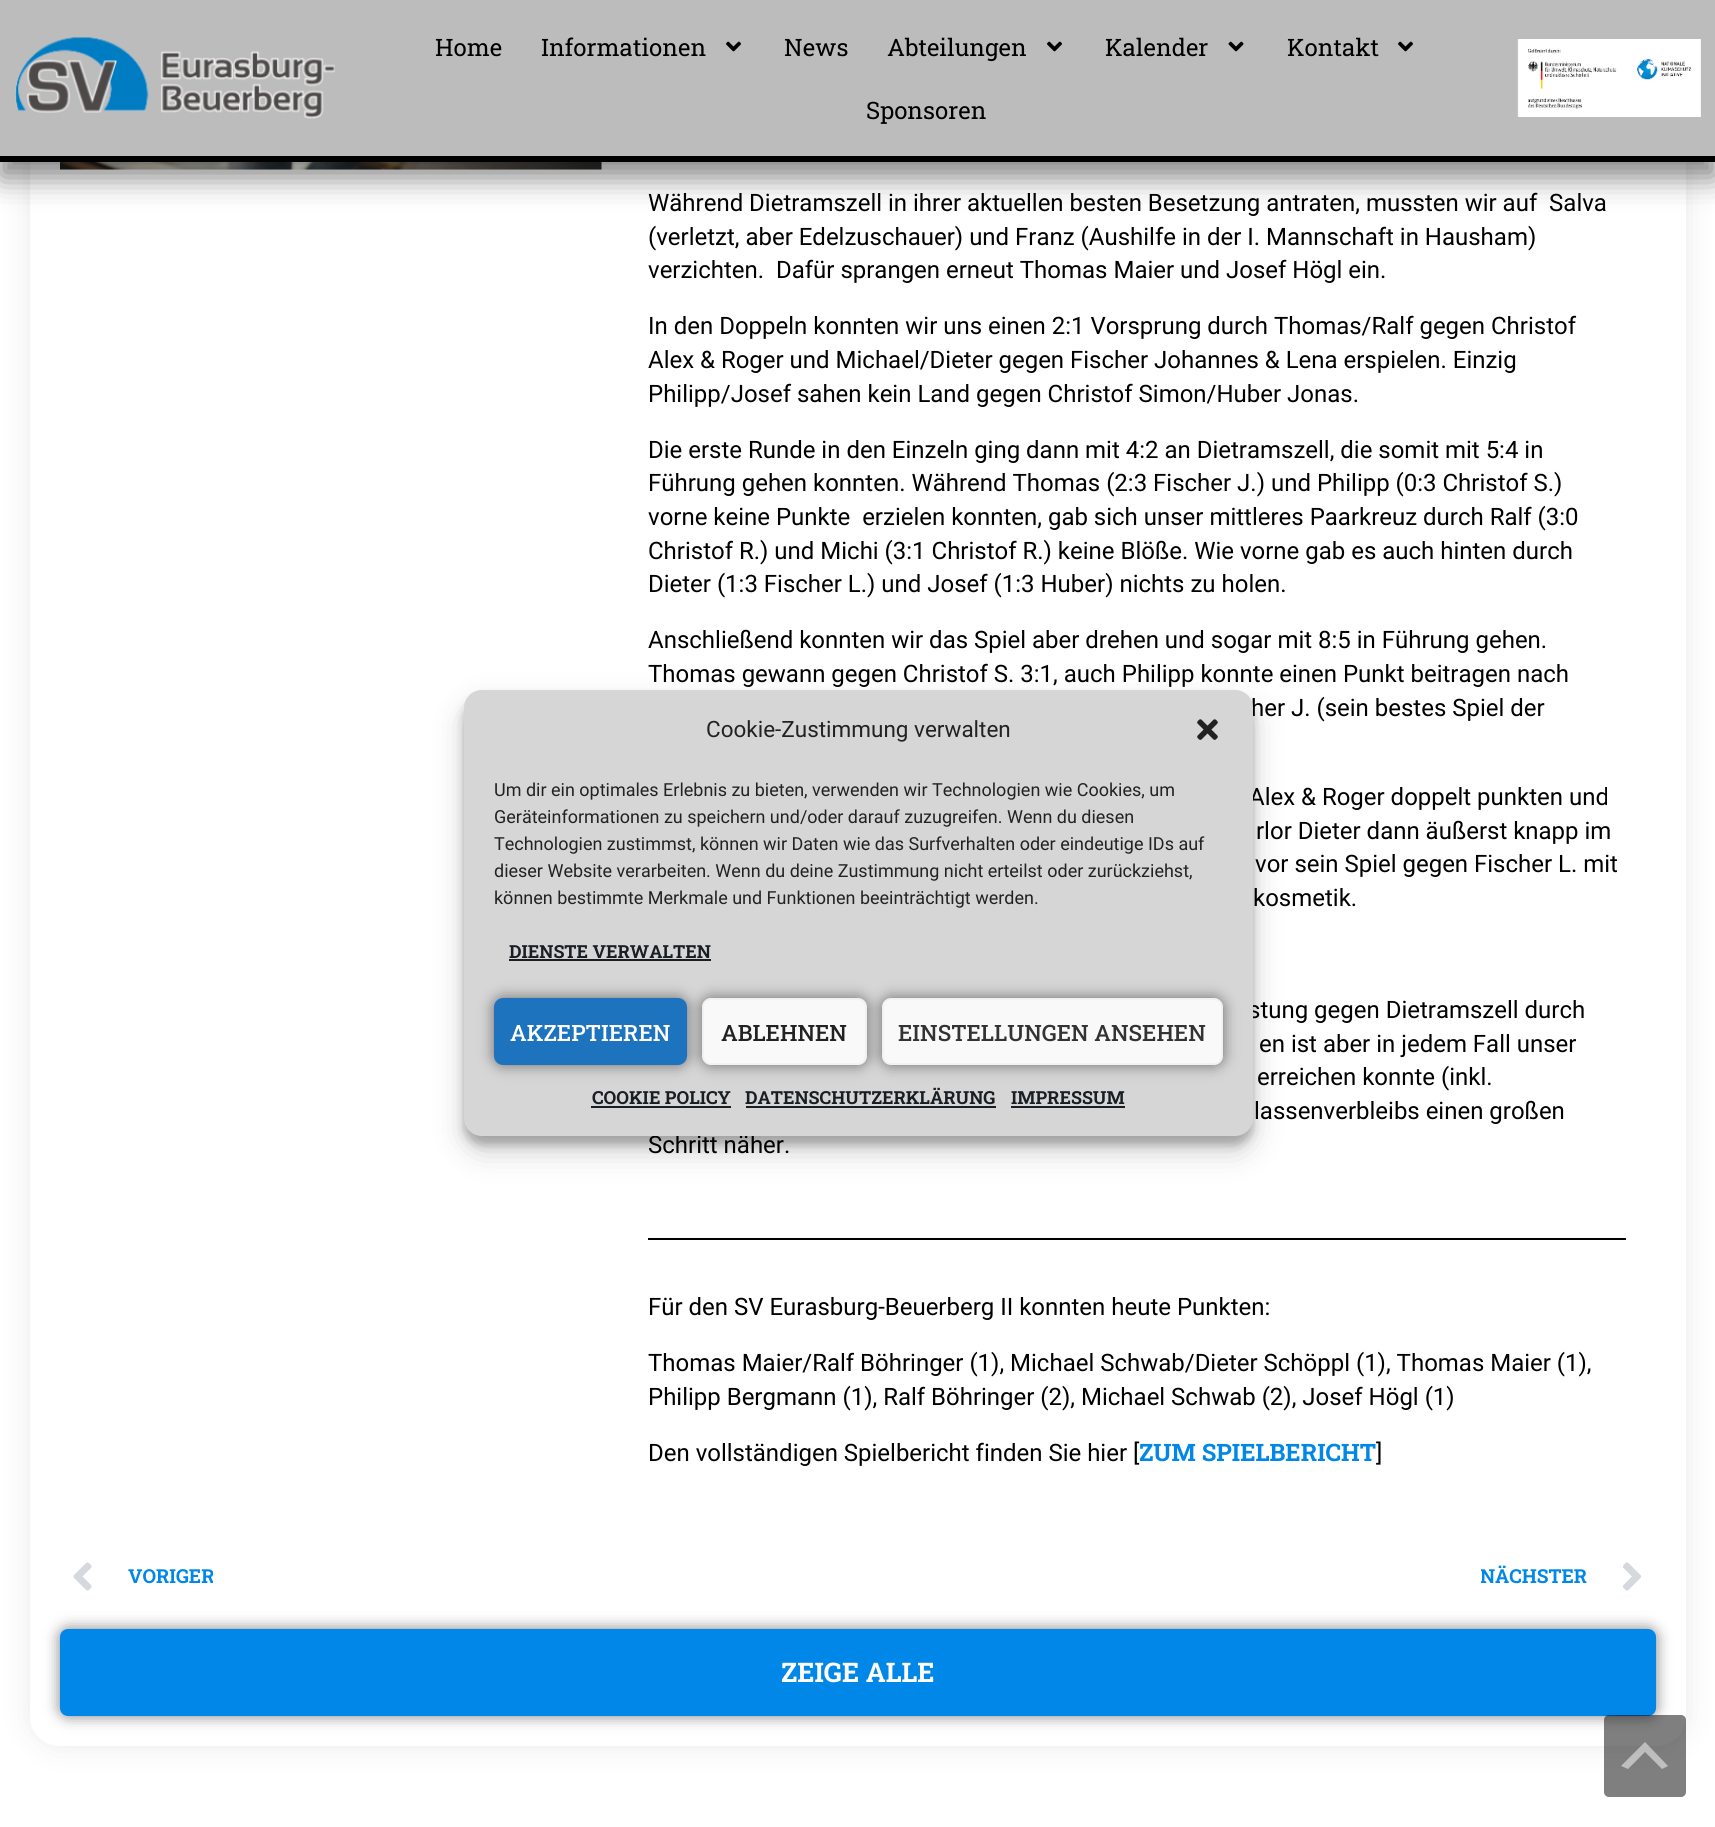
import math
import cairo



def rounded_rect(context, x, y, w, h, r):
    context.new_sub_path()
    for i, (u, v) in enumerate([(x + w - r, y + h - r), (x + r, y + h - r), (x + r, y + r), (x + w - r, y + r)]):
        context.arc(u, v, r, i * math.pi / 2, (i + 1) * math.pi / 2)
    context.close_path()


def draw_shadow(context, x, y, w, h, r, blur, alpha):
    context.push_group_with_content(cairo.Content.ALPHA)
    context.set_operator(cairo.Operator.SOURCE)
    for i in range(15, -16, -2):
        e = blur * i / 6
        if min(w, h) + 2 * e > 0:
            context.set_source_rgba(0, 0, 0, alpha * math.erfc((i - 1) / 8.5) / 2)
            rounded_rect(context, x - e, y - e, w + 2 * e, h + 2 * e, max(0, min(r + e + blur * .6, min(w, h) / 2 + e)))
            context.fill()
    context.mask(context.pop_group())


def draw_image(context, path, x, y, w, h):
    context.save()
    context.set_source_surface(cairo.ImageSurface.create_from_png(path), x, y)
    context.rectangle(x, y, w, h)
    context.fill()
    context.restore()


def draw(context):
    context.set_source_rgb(1, 1, 1)
    context.paint()
    context.set_source_rgb(0, 0, 0)
    draw_shadow(context, 30, -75, 1656, 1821, 30, 15, 0.09)
    context.set_source_rgb(1, 1, 1)
    rounded_rect(context, 30, -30, 1656, 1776, 30)
    context.fill()
    draw_image(context, "images/5.png", 60, 162, 542, 8)
    context.set_source_rgb(0, 0, 0)
    draw_shadow(context, 0, 15, 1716, 162, 0, 15, 0.49)
    context.set_source_rgb(188 / 255, 188 / 255, 188 / 255)
    context.rectangle(0, 0, 1715, 156)
    context.fill()
    context.set_source_rgb(0, 0, 0)
    context.rectangle(0, 156, 1715, 6)
    context.fill()
    draw_image(context, "images/1.png", 15, 37, 320, 82)
    draw_image(context, "images/2.png", 726, 41, 15, 11)
    draw_image(context, "images/2.png", 1047, 41, 15, 11)
    draw_image(context, "images/3.png", 1228, 41, 16, 11)
    draw_image(context, "images/2.png", 1398, 41, 15, 11)
    draw_image(context, "images/4.png", 1517, 39, 184, 78)
    context.rectangle(648, 1238, 978, 2)
    context.fill()
    draw_image(context, "images/6.png", 73, 1562, 19, 29)
    draw_image(context, "images/7.png", 1623, 1562, 18, 29)
    context.set_source_rgb(0, 0, 0)
    draw_shadow(context, 60, 1629, 1596, 87, 8, 7.5, 0.5)
    context.set_source_rgb(0, 135 / 255, 232 / 255)
    rounded_rect(context, 60, 1629, 1596, 87, 8)
    context.fill()
    context.set_source_rgb(0, 0, 0)
    draw_shadow(context, 464, 699, 789, 446, 18, 4.5, 0.23)
    draw_shadow(context, 464, 705, 789, 446, 18, 15, 0.19)
    context.set_source_rgba(0, 0, 0, 0.5)
    rounded_rect(context, 1604, 1715, 82, 82, 5)
    context.fill()
    context.set_source_rgba(1, 1, 1, 0.5)
    context.new_path()
    context.move_to(1662, 1769)
    context.line_to(1645, 1752)
    context.line_to(1628, 1769)
    context.line_to(1621, 1766)
    context.line_to(1645, 1742)
    context.line_to(1668, 1766)
    context.close_path()
    context.fill()
    context.select_font_face("Roboto Slab")
    context.set_font_size(24)
    context.set_source_rgb(0, 0, 0)
    context.move_to(435, 56)
    context.show_text("Home")
    context.move_to(541, 56)
    context.show_text("Informationen")
    context.move_to(784, 56)
    context.show_text("News")
    context.move_to(887, 56)
    context.show_text("Abteilungen")
    context.move_to(1105, 56)
    context.show_text("Kalender")
    context.move_to(1287, 56)
    context.show_text("Kontakt")
    context.move_to(866, 119)
    context.show_text("Sponsoren")
    context.select_font_face("Roboto")
    context.move_to(648, 211)
    context.show_text("Während Dietramszell in ihrer aktuellen besten Besetzung antraten, mussten wir auf  Salva")
    context.move_to(648, 245)
    context.show_text("(verletzt, aber Edelzuschauer) und Franz (Aushilfe in der I. Mannschaft in Hausham)")
    context.move_to(648, 278)
    context.show_text("verzichten.  Dafür sprangen erneut Thomas Maier und Josef Högl ein.")
    context.move_to(648, 334)
    context.show_text("In den Doppeln konnten wir uns einen 2:1 Vorsprung durch Thomas/Ralf gegen Christof")
    context.move_to(648, 368)
    context.show_text("Alex & Roger und Michael/Dieter gegen Fischer Johannes & Lena erspielen. Einzig")
    context.move_to(648, 402)
    context.show_text("Philipp/Josef sahen kein Land gegen Christof Simon/Huber Jonas.")
    context.move_to(648, 458)
    context.show_text("Die erste Runde in den Einzeln ging dann mit 4:2 an Dietramszell, die somit mit 5:4 in")
    context.move_to(648, 491)
    context.show_text("Führung gehen konnten. Während Thomas (2:3 Fischer J.) und Philipp (0:3 Christof S.)")
    context.move_to(648, 525)
    context.show_text("vorne keine Punkte  erzielen konnten, gab sich unser mittleres Paarkreuz durch Ralf (3:0")
    context.move_to(648, 559)
    context.show_text("Christof R.) und Michi (3:1 Christof R.) keine Blöße. Wie vorne gab es auch hinten durch")
    context.move_to(648, 592)
    context.show_text("Dieter (1:3 Fischer L.) und Josef (1:3 Huber) nichts zu holen.")
    context.move_to(648, 648)
    context.show_text("Anschließend konnten wir das Spiel aber drehen und sogar mit 8:5 in Führung gehen.")
    context.move_to(648, 682)
    context.show_text("Thomas gewann gegen Christof S. 3:1, auch Philipp konnte einen Punkt beitragen nach")
    context.move_to(1251, 716)
    context.show_text("her J. (sein bestes Spiel der")
    context.move_to(1249, 805)
    context.show_text("Alex & Roger doppelt punkten und")
    context.move_to(1256, 839)
    context.show_text("rlor Dieter dann äußerst knapp im")
    context.move_to(1255, 872)
    context.show_text("vor sein Spiel gegen Fischer L. mit")
    context.move_to(1253, 906)
    context.show_text("kosmetik.")
    context.move_to(1248, 1018)
    context.show_text("stung gegen Dietramszell durch")
    context.move_to(1259, 1052)
    context.show_text("en ist aber in jedem Fall unser")
    context.move_to(1257, 1085)
    context.show_text("erreichen konnte (inkl.")
    context.move_to(1254, 1119)
    context.show_text("lassenverbleibs einen großen")
    context.move_to(648, 1153)
    context.show_text("Schritt näher.")
    context.move_to(648, 1315)
    context.show_text("Für den SV Eurasburg-Beuerberg II konnten heute Punkten:")
    context.move_to(648, 1371)
    context.show_text("Thomas Maier/Ralf Böhringer (1), Michael Schwab/Dieter Schöppl (1), Thomas Maier (1),")
    context.move_to(648, 1405)
    context.show_text("Philipp Bergmann (1), Ralf Böhringer (2), Michael Schwab (2), Josef Högl (1)")
    context.move_to(648, 1461)
    context.show_text("Den vollständigen Spielbericht finden Sie hier [")
    context.select_font_face("Roboto Slab", cairo.FontSlant.NORMAL, cairo.FontWeight.BOLD)
    context.set_source_rgb(0, 135 / 255, 232 / 255)
    context.move_to(1139, 1461)
    context.show_text("ZUM SPIELBERICHT")
    context.select_font_face("Roboto")
    context.set_source_rgb(0, 0, 0)
    context.move_to(1376, 1461)
    context.show_text("]")
    context.save()
    context.rectangle(128, 1565, 85, 24)
    context.clip()
    context.select_font_face("Roboto Slab", cairo.FontSlant.NORMAL, cairo.FontWeight.BOLD)
    context.set_font_size(19.25)
    context.set_source_rgb(0, 135 / 255, 232 / 255)
    context.move_to(128, 1583)
    context.show_text("VORIGER")
    context.restore()
    context.save()
    context.rectangle(1481, 1565, 106, 24)
    context.clip()
    context.select_font_face("Roboto Slab", cairo.FontSlant.NORMAL, cairo.FontWeight.BOLD)
    context.set_font_size(19.25)
    context.set_source_rgb(0, 135 / 255, 232 / 255)
    context.move_to(1480, 1583)
    context.show_text("NÄCHSTER")
    context.restore()
    context.select_font_face("Roboto Slab", cairo.FontSlant.NORMAL, cairo.FontWeight.BOLD)
    context.set_font_size(27)
    context.set_source_rgb(1, 1, 1)
    context.move_to(781, 1682)
    context.show_text("ZEIGE ALLE")
    context.set_source_rgb(214 / 255, 214 / 255, 214 / 255)
    rounded_rect(context, 464, 690, 789, 446, 18)
    context.fill()
    context.select_font_face("Roboto")
    context.set_font_size(22.5)
    context.set_source_rgb(34 / 255, 34 / 255, 34 / 255)
    context.move_to(706, 737)
    context.show_text("Cookie-Zustimmung verwalten")
    draw_image(context, "images/8.png", 1197, 719, 21, 21)
    context.set_font_size(18)
    context.move_to(494, 796)
    context.show_text("Um dir ein optimales Erlebnis zu bieten, verwenden wir Technologien wie Cookies, um")
    context.move_to(494, 823)
    context.show_text("Geräteinformationen zu speichern und/oder darauf zuzugreifen. Wenn du diesen")
    context.move_to(494, 850)
    context.show_text("Technologien zustimmst, können wir Daten wie das Surfverhalten oder eindeutige IDs auf")
    context.move_to(494, 877)
    context.show_text("dieser Website verarbeiten. Wenn du deine Zustimmung nicht erteilst oder zurückziehst,")
    context.move_to(494, 904)
    context.show_text("können bestimmte Merkmale und Funktionen beeinträchtigt werden.")
    context.select_font_face("Roboto Slab", cairo.FontSlant.NORMAL, cairo.FontWeight.BOLD)
    context.set_source_rgb(25 / 255, 30 / 255, 35 / 255)
    context.move_to(509, 958)
    context.show_text("DIENSTE VERWALTEN")
    context.rectangle(509, 959, 202, 2)
    context.fill()
    context.set_source_rgb(0, 0, 0)
    draw_shadow(context, 494, 998, 193, 67, 9, 7.5, 0.5)
    context.set_source_rgb(30 / 255, 115 / 255, 190 / 255)
    rounded_rect(context, 495, 999, 191, 65, 8)
    context.fill_preserve()
    context.stroke()
    context.select_font_face("Roboto Slab Medium")
    context.set_font_size(22.5)
    context.set_source_rgb(1, 1, 1)
    context.move_to(510, 1041)
    context.show_text("AKZEPTIEREN")
    context.set_source_rgb(0, 0, 0)
    draw_shadow(context, 702, 998, 165, 67, 9, 7.5, 0.5)
    context.set_source_rgb(249 / 255, 249 / 255, 249 / 255)
    rounded_rect(context, 703, 999, 163, 65, 8)
    context.fill_preserve()
    context.set_source_rgb(242 / 255, 242 / 255, 242 / 255)
    context.stroke()
    context.set_source_rgb(34 / 255, 34 / 255, 34 / 255)
    context.move_to(721, 1041)
    context.show_text("ABLEHNEN")
    context.set_source_rgb(0, 0, 0)
    draw_shadow(context, 882, 998, 341, 67, 9, 7.5, 0.5)
    context.set_source_rgb(249 / 255, 249 / 255, 249 / 255)
    rounded_rect(context, 883, 999, 339, 65, 8)
    context.fill_preserve()
    context.set_source_rgb(242 / 255, 242 / 255, 242 / 255)
    context.stroke()
    context.set_source_rgb(51 / 255, 51 / 255, 51 / 255)
    context.move_to(898, 1041)
    context.show_text("EINSTELLUNGEN ANSEHEN")
    context.select_font_face("Roboto Slab", cairo.FontSlant.NORMAL, cairo.FontWeight.BOLD)
    context.set_font_size(18)
    context.set_source_rgb(25 / 255, 30 / 255, 35 / 255)
    context.move_to(592, 1104)
    context.show_text("COOKIE POLICY")
    context.rectangle(591, 1106, 140, 2)
    context.fill()
    context.move_to(745, 1104)
    context.show_text("DATENSCHUTZERKLÄRUNG")
    context.rectangle(746, 1106, 250, 2)
    context.fill()
    context.move_to(1011, 1104)
    context.show_text("IMPRESSUM")
    context.rectangle(1011, 1106, 114, 2)
    context.fill()


surface = cairo.ImageSurface(cairo.Format.RGB24, 1715, 1827)
context = cairo.Context(surface)
options = cairo.FontOptions()
options.set_hint_metrics(cairo.HintMetrics.OFF)
options.set_hint_style(cairo.HintStyle.NONE)
context.set_font_options(options)
context.set_miter_limit(4)
draw(context)
surface.write_to_png("out.png")
